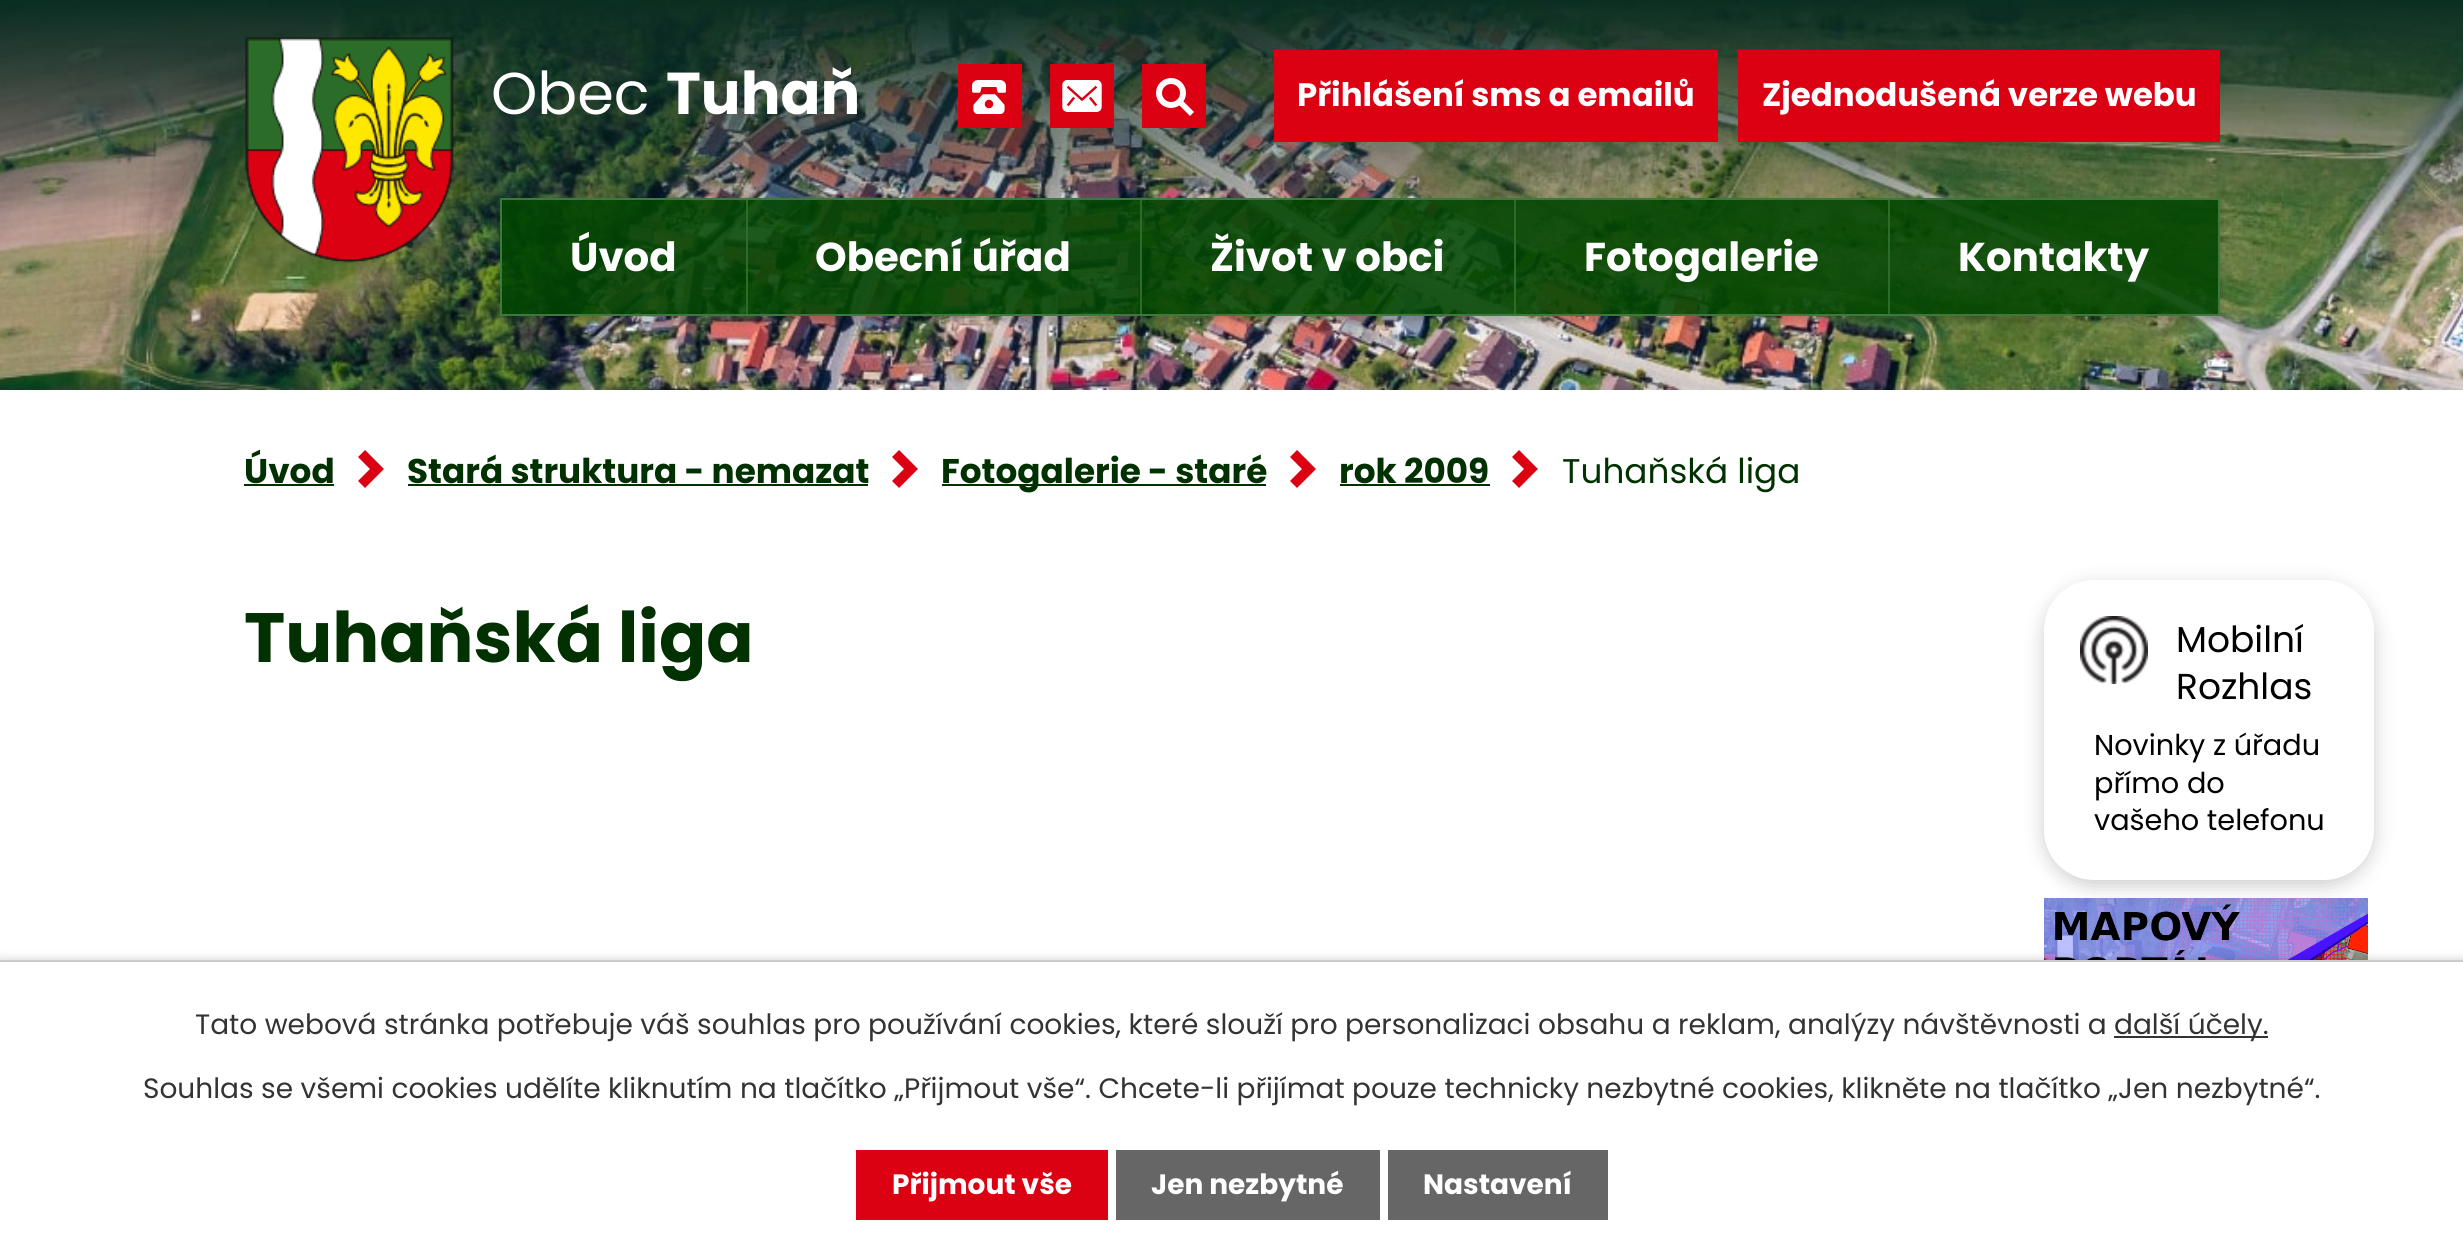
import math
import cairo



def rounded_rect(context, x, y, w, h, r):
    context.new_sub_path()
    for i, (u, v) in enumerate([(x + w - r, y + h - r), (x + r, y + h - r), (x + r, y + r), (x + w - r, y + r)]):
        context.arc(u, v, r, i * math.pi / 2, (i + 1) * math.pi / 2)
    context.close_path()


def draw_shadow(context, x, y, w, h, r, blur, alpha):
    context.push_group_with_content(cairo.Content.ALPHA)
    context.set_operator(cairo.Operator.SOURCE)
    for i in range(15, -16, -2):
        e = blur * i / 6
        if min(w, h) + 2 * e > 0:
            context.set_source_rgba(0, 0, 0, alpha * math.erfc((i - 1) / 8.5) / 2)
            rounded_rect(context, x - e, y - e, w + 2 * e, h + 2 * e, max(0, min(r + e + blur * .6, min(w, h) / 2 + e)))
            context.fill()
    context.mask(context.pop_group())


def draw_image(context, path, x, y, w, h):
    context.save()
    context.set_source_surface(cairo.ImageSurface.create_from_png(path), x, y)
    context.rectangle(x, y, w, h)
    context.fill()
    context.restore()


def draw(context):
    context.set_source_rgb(1, 1, 1)
    context.paint()
    draw_image(context, "images/1.png", 0, 0, 2463, 390)
    draw_image(context, "images/2.png", 245, 37, 209, 226)
    context.set_source_rgb(219 / 255, 0, 18 / 255)
    context.rectangle(958, 64, 64, 64)
    context.fill()
    draw_image(context, "images/3.png", 972, 80, 34, 34)
    context.rectangle(1050, 64, 64, 64)
    context.fill()
    draw_image(context, "images/4.png", 1062, 80, 40, 32)
    context.rectangle(1142, 64, 64, 64)
    context.fill()
    context.arc(1171, 93, 12, 0, 2 * math.pi)
    context.set_source_rgb(1, 1, 1)
    context.set_line_width(6)
    context.stroke()
    context.new_path()
    context.move_to(1181, 99)
    context.line_to(1194, 112)
    context.line_to(1190, 116)
    context.line_to(1177, 103)
    context.close_path()
    context.fill()
    context.set_source_rgb(219 / 255, 0, 18 / 255)
    context.rectangle(1274, 50, 444, 92)
    context.fill()
    context.rectangle(1738, 50, 482, 92)
    context.fill()
    context.save()
    context.set_fill_rule(cairo.FillRule.EVEN_ODD)
    context.new_path()
    context.move_to(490, 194)
    context.line_to(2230, 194)
    context.line_to(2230, 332)
    context.line_to(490, 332)
    context.close_path()
    context.move_to(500, 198)
    context.line_to(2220, 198)
    context.line_to(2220, 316)
    context.line_to(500, 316)
    context.close_path()
    context.clip()
    context.set_source_rgb(0, 0, 0)
    draw_shadow(context, 500, 204, 1720, 118, 0, 3, 0.16)
    context.restore()
    context.set_source_rgba(2 / 255, 70 / 255, 0, 0.88)
    context.rectangle(501, 199, 1718, 116)
    context.fill_preserve()
    context.set_source_rgb(61 / 255, 121 / 255, 60 / 255)
    context.set_line_width(2)
    context.stroke()
    context.set_source_rgb(42 / 255, 108 / 255, 40 / 255)
    context.rectangle(746, 200, 2, 114)
    context.fill()
    context.rectangle(1140, 200, 2, 114)
    context.fill()
    context.rectangle(1514, 200, 2, 114)
    context.fill()
    context.rectangle(1888, 200, 2, 114)
    context.fill()
    context.set_source_rgb(1 / 255, 49 / 255, 0)
    context.rectangle(244, 484, 90, 2)
    context.fill()
    draw_image(context, "images/5.png", 358, 450, 26, 38)
    context.rectangle(408, 484, 460, 2)
    context.fill()
    draw_image(context, "images/5.png", 892, 450, 26, 38)
    context.rectangle(942, 484, 324, 2)
    context.fill()
    draw_image(context, "images/5.png", 1290, 450, 26, 38)
    context.rectangle(1340, 484, 150, 2)
    context.fill()
    draw_image(context, "images/6.png", 1512, 450, 26, 38)
    draw_image(context, "images/8.png", 2044, 898, 324, 62)
    context.set_source_rgb(0, 0, 0)
    draw_shadow(context, 2044, 586, 330, 300, 50, 10, 0.2)
    context.set_source_rgb(1, 1, 1)
    rounded_rect(context, 2044, 580, 330, 300, 50)
    context.fill()
    draw_image(context, "images/7.png", 2080, 616, 68, 68)
    context.set_source_rgb(0, 0, 0)
    draw_shadow(context, 0, 960, 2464, 298, 0, 5, 0.2)
    context.set_source_rgb(1, 1, 1)
    context.rectangle(0, 962, 2463, 296)
    context.fill()
    context.set_source_rgb(204 / 255, 204 / 255, 204 / 255)
    context.rectangle(0, 960, 2463, 2)
    context.fill()
    context.set_source_rgb(51 / 255, 51 / 255, 51 / 255)
    context.rectangle(2114, 1036, 154, 2)
    context.fill()
    context.set_source_rgb(219 / 255, 0, 18 / 255)
    context.rectangle(856, 1150, 252, 70)
    context.fill()
    context.set_source_rgb(102 / 255, 102 / 255, 102 / 255)
    context.rectangle(1116, 1150, 264, 70)
    context.fill()
    context.rectangle(1388, 1150, 220, 70)
    context.fill()
    context.select_font_face("Poppins")
    context.set_font_size(59)
    context.set_source_rgb(1, 1, 1)
    context.move_to(491, 114)
    context.show_text("Obec")
    context.select_font_face("Poppins", cairo.FontSlant.NORMAL, cairo.FontWeight.BOLD)
    context.move_to(666, 114)
    context.show_text("Tuhaň")
    context.set_font_size(32.4)
    context.move_to(1297, 106)
    context.show_text("Přihlášení sms a emailů")
    context.move_to(1762, 106)
    context.show_text("Zjednodušená verze webu")
    context.set_font_size(40.25)
    context.move_to(570, 271)
    context.show_text("Úvod")
    context.move_to(815, 271)
    context.show_text("Obecní úřad")
    context.move_to(1210, 271)
    context.show_text("Život v obci")
    context.move_to(1584, 271)
    context.show_text("Fotogalerie")
    context.move_to(1958, 271)
    context.show_text("Kontakty")
    context.set_font_size(34.25)
    context.set_source_rgb(1 / 255, 49 / 255, 0)
    context.move_to(244, 483)
    context.show_text("Úvod")
    context.move_to(407, 483)
    context.show_text("Stará struktura - nemazat")
    context.move_to(941, 483)
    context.show_text("Fotogalerie - staré")
    context.move_to(1339, 483)
    context.show_text("rok 2009")
    context.select_font_face("Poppins")
    context.move_to(1562, 483)
    context.show_text("Tuhaňská liga")
    context.select_font_face("Poppins", cairo.FontSlant.NORMAL, cairo.FontWeight.BOLD)
    context.set_font_size(69.75)
    context.move_to(244, 662)
    context.show_text("Tuhaňská liga")
    context.select_font_face("Poppins")
    context.set_font_size(36)
    context.set_source_rgb(0, 0, 0)
    context.move_to(2176, 652)
    context.show_text("Mobilní")
    context.move_to(2176, 699)
    context.show_text("Rozhlas")
    context.set_font_size(28.75)
    context.move_to(2094, 755)
    context.show_text("Novinky z úřadu")
    context.move_to(2094, 793)
    context.show_text("přímo do")
    context.move_to(2094, 830)
    context.show_text("vašeho telefonu")
    context.set_font_size(28)
    context.set_source_rgb(51 / 255, 51 / 255, 51 / 255)
    context.move_to(195, 1034)
    context.show_text("Tato webová stránka potřebuje váš souhlas pro používání cookies, které slouží pro personalizaci obsahu a reklam, analýzy návštěvnosti a")
    context.move_to(2114, 1034)
    context.show_text("další účely.")
    context.move_to(143, 1098)
    context.show_text("Souhlas se všemi cookies udělíte kliknutím na tlačítko „Přijmout vše“. Chcete-li přijímat pouze technicky nezbytné cookies, klikněte na tlačítko „Jen nezbytné“.")
    context.select_font_face("Poppins", cairo.FontSlant.NORMAL, cairo.FontWeight.BOLD)
    context.set_source_rgb(1, 1, 1)
    context.move_to(892, 1194)
    context.show_text("Přijmout vše")
    context.move_to(1151, 1194)
    context.show_text("Jen nezbytné")
    context.move_to(1423, 1194)
    context.show_text("Nastavení")


surface = cairo.ImageSurface(cairo.Format.RGB24, 2463, 1258)
context = cairo.Context(surface)
options = cairo.FontOptions()
options.set_hint_metrics(cairo.HintMetrics.OFF)
options.set_hint_style(cairo.HintStyle.NONE)
context.set_font_options(options)
context.set_miter_limit(4)
draw(context)
surface.write_to_png("out.png")
